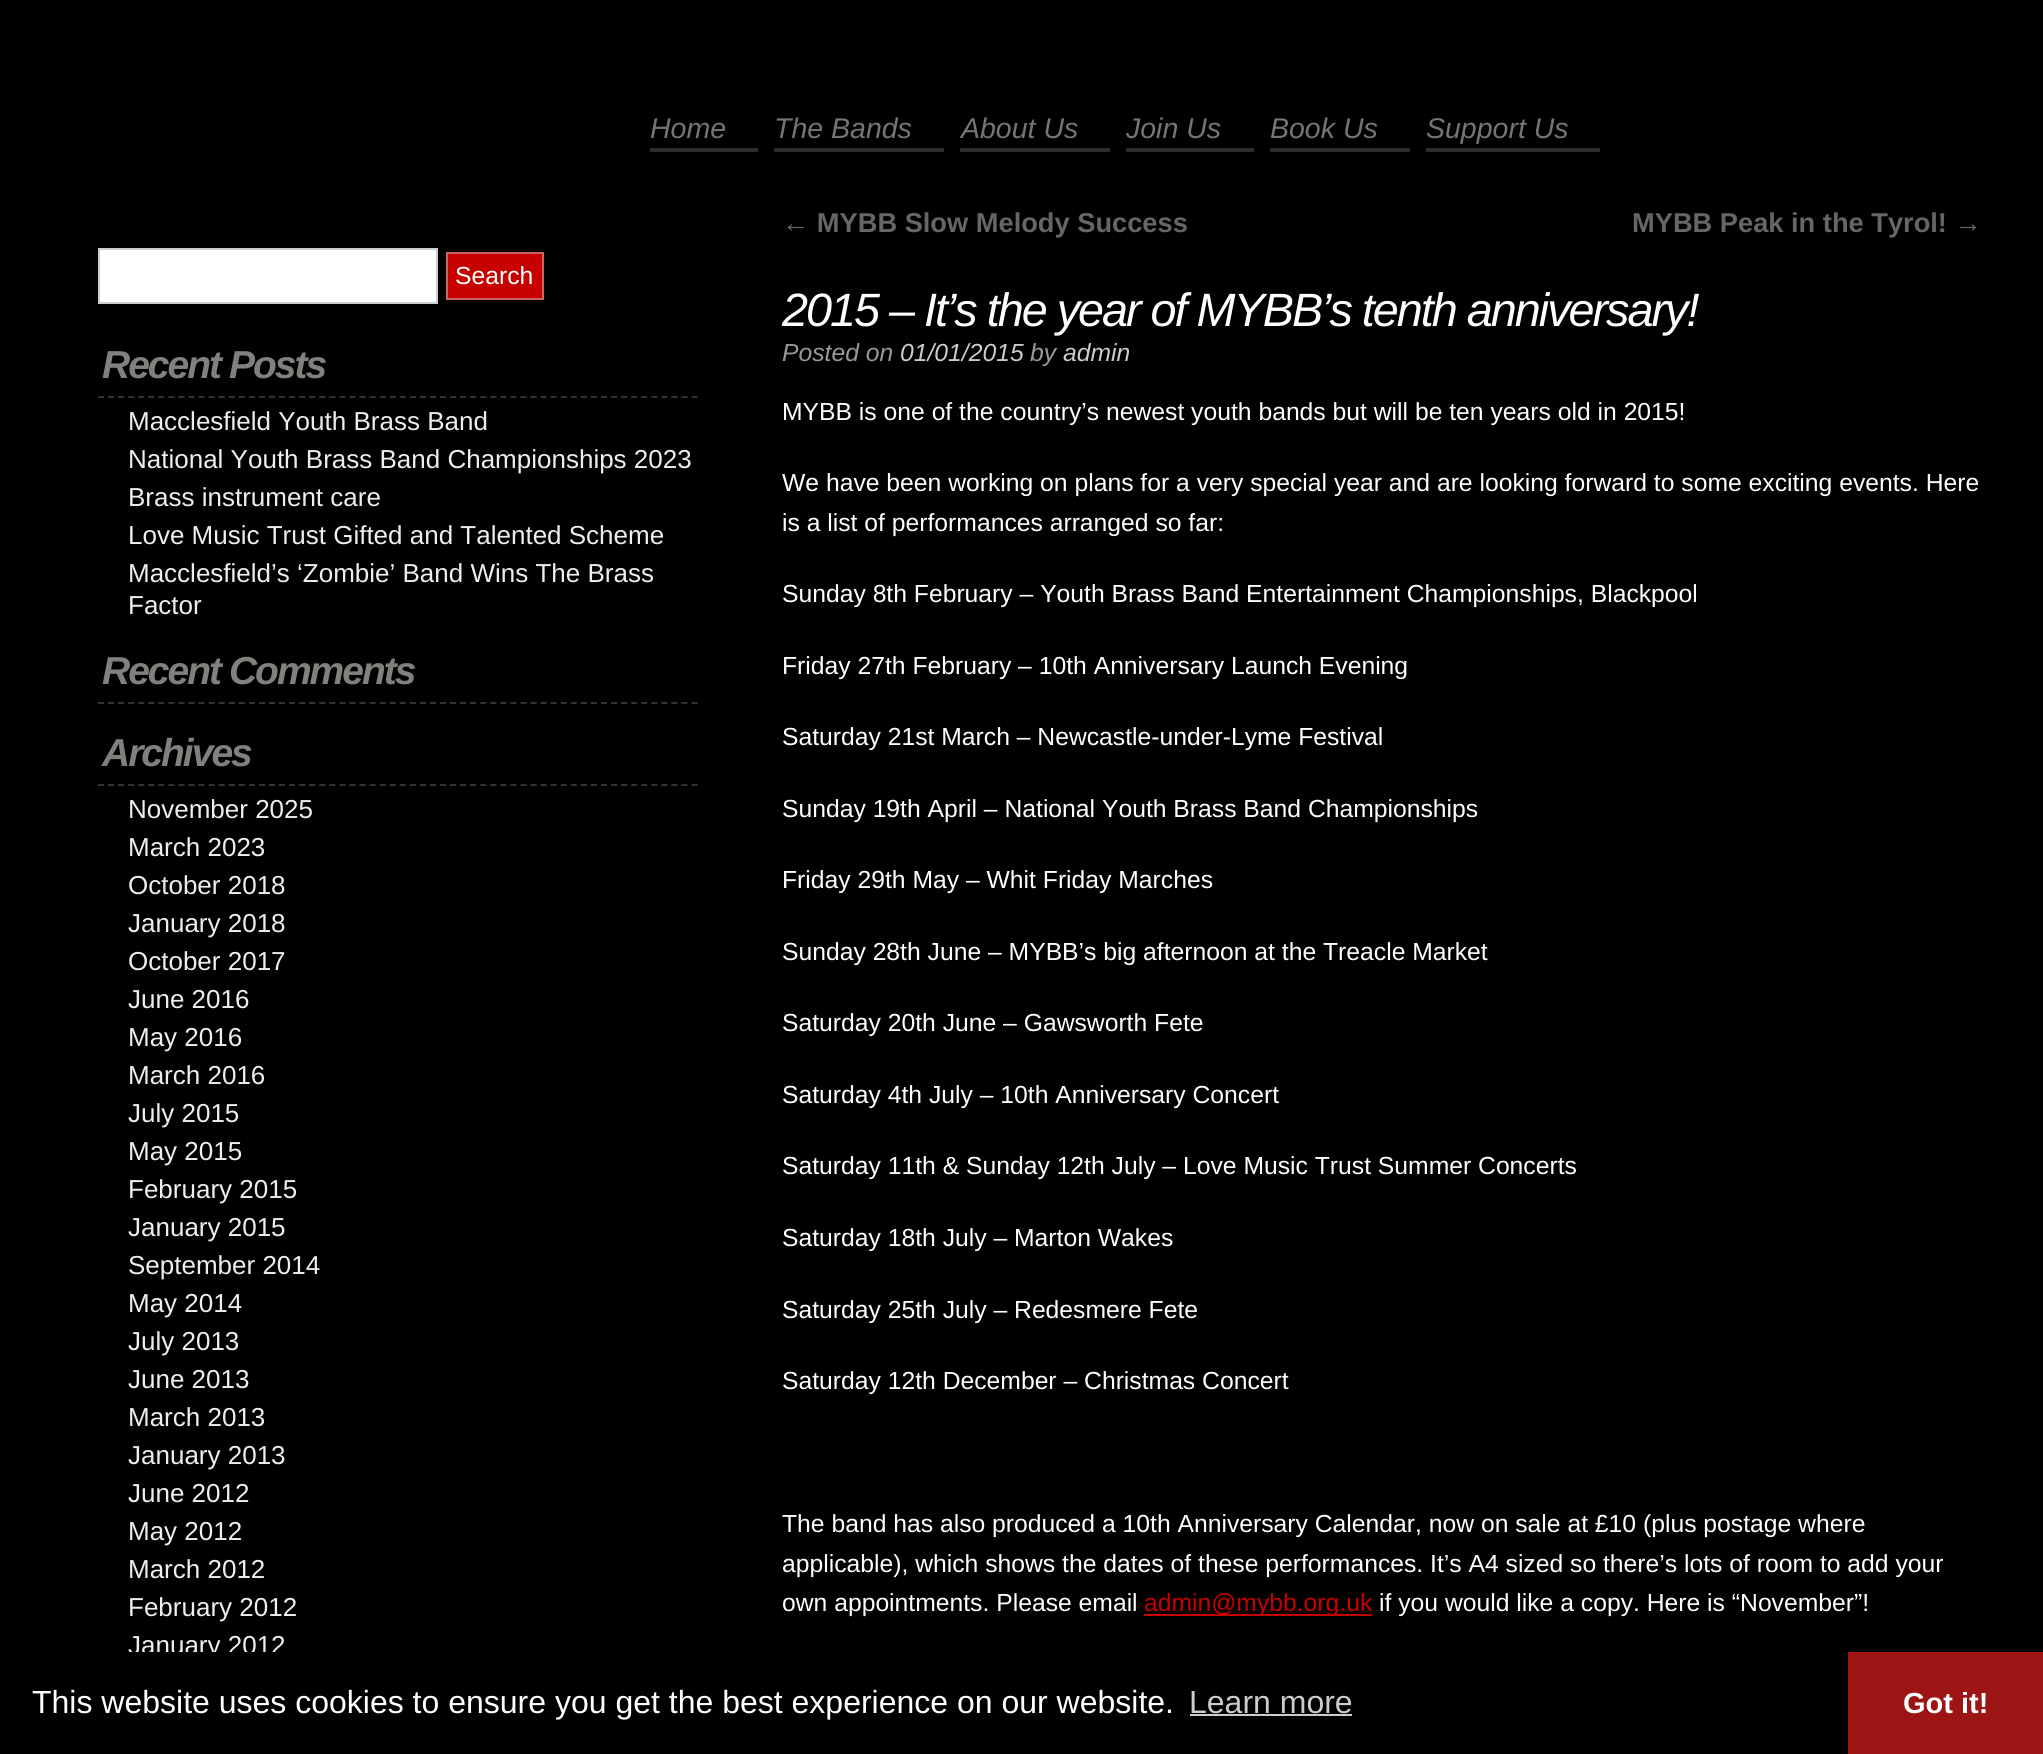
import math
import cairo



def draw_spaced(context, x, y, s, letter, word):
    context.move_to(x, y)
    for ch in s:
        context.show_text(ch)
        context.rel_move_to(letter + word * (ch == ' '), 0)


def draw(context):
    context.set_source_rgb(0, 0, 0)
    context.paint()
    context.set_source_rgb(45 / 255, 45 / 255, 45 / 255)
    context.rectangle(650, 148, 108, 4)
    context.fill()
    context.rectangle(774, 148, 170, 4)
    context.fill()
    context.rectangle(960, 148, 150, 4)
    context.fill()
    context.rectangle(1126, 148, 128, 4)
    context.fill()
    context.rectangle(1270, 148, 140, 4)
    context.fill()
    context.rectangle(1426, 148, 174, 4)
    context.fill()
    context.set_source_rgb(1, 1, 1)
    context.rectangle(99, 249, 338, 54)
    context.fill_preserve()
    context.set_source_rgb(204 / 255, 204 / 255, 204 / 255)
    context.stroke()
    context.set_source_rgb(199 / 255, 0, 0)
    context.rectangle(447, 253, 96, 46)
    context.fill_preserve()
    context.set_source_rgb(199 / 255, 102 / 255, 102 / 255)
    context.stroke()
    context.new_path()
    context.move_to(98, 397)
    context.line_to(698, 397)
    context.set_source_rgb(51 / 255, 51 / 255, 51 / 255)
    context.set_dash([6, 4.06])
    context.stroke()
    context.new_path()
    context.move_to(98, 703)
    context.line_to(698, 703)
    context.stroke()
    context.new_path()
    context.move_to(98, 785)
    context.line_to(698, 785)
    context.stroke()
    context.set_source_rgb(199 / 255, 0, 0)
    context.rectangle(1144, 1614, 228, 2)
    context.fill()
    context.set_source_rgb(204 / 255, 204 / 255, 204 / 255)
    context.rectangle(1190, 1714, 162, 2)
    context.fill()
    context.set_source_rgb(156 / 255, 20 / 255, 20 / 255)
    context.rectangle(1848, 1652, 195, 102)
    context.fill()
    context.select_font_face("Liberation Sans", cairo.FontSlant.ITALIC)
    context.set_font_size(28.5)
    context.set_source_rgb(117 / 255, 117 / 255, 117 / 255)
    context.move_to(650, 138)
    context.show_text("Home")
    context.move_to(774, 138)
    context.show_text("The Bands")
    context.move_to(961, 138)
    context.show_text("About Us")
    context.move_to(1126, 138)
    context.show_text("Join Us")
    context.move_to(1270, 138)
    context.show_text("Book Us")
    context.move_to(1426, 138)
    context.show_text("Support Us")
    context.select_font_face("Liberation Sans")
    context.set_font_size(24.7)
    context.set_source_rgb(1, 1, 1)
    context.move_to(455, 284)
    context.show_text("Search")
    context.select_font_face("Liberation Sans", cairo.FontSlant.ITALIC, cairo.FontWeight.BOLD)
    context.set_font_size(39)
    context.set_source_rgb(129 / 255, 128 / 255, 125 / 255)
    draw_spaced(context, 102, 378, "Recent Posts", -2, 0)
    context.select_font_face("Liberation Sans")
    context.set_font_size(26)
    context.set_source_rgb(238 / 255, 238 / 255, 238 / 255)
    context.move_to(128, 430)
    context.show_text("Macclesfield Youth Brass Band")
    context.move_to(128, 468)
    context.show_text("National Youth Brass Band Championships 2023")
    context.move_to(128, 506)
    context.show_text("Brass instrument care")
    context.move_to(128, 544)
    context.show_text("Love Music Trust Gifted and Talented Scheme")
    context.move_to(128, 582)
    context.show_text("Macclesfield’s ‘Zombie’ Band Wins The Brass")
    context.move_to(128, 614)
    context.show_text("Factor")
    context.select_font_face("Liberation Sans", cairo.FontSlant.ITALIC, cairo.FontWeight.BOLD)
    context.set_font_size(39)
    context.set_source_rgb(129 / 255, 128 / 255, 125 / 255)
    draw_spaced(context, 102, 684, "Recent Comments", -2, 0)
    draw_spaced(context, 102, 766, "Archives", -2, 0)
    context.select_font_face("Liberation Sans")
    context.set_font_size(26)
    context.set_source_rgb(238 / 255, 238 / 255, 238 / 255)
    context.move_to(128, 818)
    context.show_text("November 2025")
    context.move_to(128, 856)
    context.show_text("March 2023")
    context.move_to(128, 894)
    context.show_text("October 2018")
    context.move_to(128, 932)
    context.show_text("January 2018")
    context.move_to(128, 970)
    context.show_text("October 2017")
    context.move_to(128, 1008)
    context.show_text("June 2016")
    context.move_to(128, 1046)
    context.show_text("May 2016")
    context.move_to(128, 1084)
    context.show_text("March 2016")
    context.move_to(128, 1122)
    context.show_text("July 2015")
    context.move_to(128, 1160)
    context.show_text("May 2015")
    context.move_to(128, 1198)
    context.show_text("February 2015")
    context.move_to(128, 1236)
    context.show_text("January 2015")
    context.move_to(128, 1274)
    context.show_text("September 2014")
    context.move_to(128, 1312)
    context.show_text("May 2014")
    context.move_to(128, 1350)
    context.show_text("July 2013")
    context.move_to(128, 1388)
    context.show_text("June 2013")
    context.move_to(128, 1426)
    context.show_text("March 2013")
    context.move_to(128, 1464)
    context.show_text("January 2013")
    context.move_to(128, 1502)
    context.show_text("June 2012")
    context.move_to(128, 1540)
    context.show_text("May 2012")
    context.move_to(128, 1578)
    context.show_text("March 2012")
    context.move_to(128, 1616)
    context.show_text("February 2012")
    context.move_to(128, 1654)
    context.show_text("January 2012")
    context.select_font_face("Liberation Sans", cairo.FontSlant.NORMAL, cairo.FontWeight.BOLD)
    context.set_font_size(27.25)
    context.set_source_rgb(102 / 255, 102 / 255, 102 / 255)
    context.move_to(782, 232)
    context.show_text("← MYBB Slow Melody Success")
    context.move_to(1632, 232)
    context.show_text("MYBB Peak in the Tyrol! →")
    context.select_font_face("Liberation Sans", cairo.FontSlant.ITALIC)
    context.set_font_size(46.75)
    context.set_source_rgb(1, 1, 1)
    draw_spaced(context, 782, 326, "2015 – It’s the year of MYBB’s tenth anniversary!", -2, 0)
    context.set_font_size(24.7)
    context.set_source_rgb(153 / 255, 153 / 255, 153 / 255)
    context.move_to(782, 361)
    context.show_text("Posted on")
    context.set_source_rgb(204 / 255, 204 / 255, 204 / 255)
    context.move_to(900, 361)
    context.show_text("01/01/2015")
    context.set_source_rgb(153 / 255, 153 / 255, 153 / 255)
    context.move_to(1030, 361)
    context.show_text("by")
    context.set_source_rgb(204 / 255, 204 / 255, 204 / 255)
    context.move_to(1063, 361)
    context.show_text("admin")
    context.select_font_face("Liberation Sans")
    context.set_source_rgb(1, 1, 1)
    context.move_to(782, 420)
    context.show_text("MYBB is one of the country’s newest youth bands but will be ten years old in 2015!")
    context.move_to(782, 491)
    context.show_text("We have been working on plans for a very special year and are looking forward to some exciting events. Here")
    context.move_to(782, 531)
    context.show_text("is a list of performances arranged so far:")
    context.move_to(782, 602)
    context.show_text("Sunday 8th February – Youth Brass Band Entertainment Championships, Blackpool")
    context.move_to(782, 674)
    context.show_text("Friday 27th February – 10th Anniversary Launch Evening")
    context.move_to(782, 745)
    context.show_text("Saturday 21st March – Newcastle-under-Lyme Festival")
    context.move_to(782, 817)
    context.show_text("Sunday 19th April – National Youth Brass Band Championships")
    context.move_to(782, 888)
    context.show_text("Friday 29th May – Whit Friday Marches")
    context.move_to(782, 960)
    context.show_text("Sunday 28th June – MYBB’s big afternoon at the Treacle Market")
    context.move_to(782, 1031)
    context.show_text("Saturday 20th June – Gawsworth Fete")
    context.move_to(782, 1103)
    context.show_text("Saturday 4th July – 10th Anniversary Concert")
    context.move_to(782, 1174)
    context.show_text("Saturday 11th & Sunday 12th July – Love Music Trust Summer Concerts")
    context.move_to(782, 1246)
    context.show_text("Saturday 18th July – Marton Wakes")
    context.move_to(782, 1318)
    context.show_text("Saturday 25th July – Redesmere Fete")
    context.move_to(782, 1389)
    context.show_text("Saturday 12th December – Christmas Concert")
    context.move_to(782, 1532)
    context.show_text("The band has also produced a 10th Anniversary Calendar, now on sale at £10 (plus postage where")
    context.move_to(782, 1572)
    context.show_text("applicable), which shows the dates of these performances. It’s A4 sized so there’s lots of room to add your")
    context.move_to(782, 1611)
    context.show_text("own appointments. Please email")
    context.set_source_rgb(199 / 255, 0, 0)
    context.move_to(1144, 1611)
    context.show_text("admin@mybb.org.uk")
    context.set_source_rgb(1, 1, 1)
    context.move_to(1379, 1611)
    context.show_text("if you would like a copy. Here is “November”!")
    context.set_source_rgb(0, 0, 0)
    context.rectangle(129, 1652, 156, 8)
    context.fill()
    context.set_font_size(32)
    context.set_source_rgb(1, 1, 1)
    context.move_to(32, 1713)
    context.show_text("This website uses cookies to ensure you get the best experience on our website.")
    context.set_source_rgb(204 / 255, 204 / 255, 204 / 255)
    context.move_to(1189, 1713)
    context.show_text("Learn more")
    context.select_font_face("Liberation Sans", cairo.FontSlant.NORMAL, cairo.FontWeight.BOLD)
    context.set_font_size(29)
    context.set_source_rgb(1, 1, 1)
    context.move_to(1903, 1713)
    context.show_text("Got it!")


surface = cairo.ImageSurface(cairo.Format.RGB24, 2043, 1754)
context = cairo.Context(surface)
options = cairo.FontOptions()
options.set_hint_metrics(cairo.HintMetrics.OFF)
options.set_hint_style(cairo.HintStyle.NONE)
context.set_font_options(options)
context.set_miter_limit(4)
draw(context)
surface.write_to_png("out.png")
